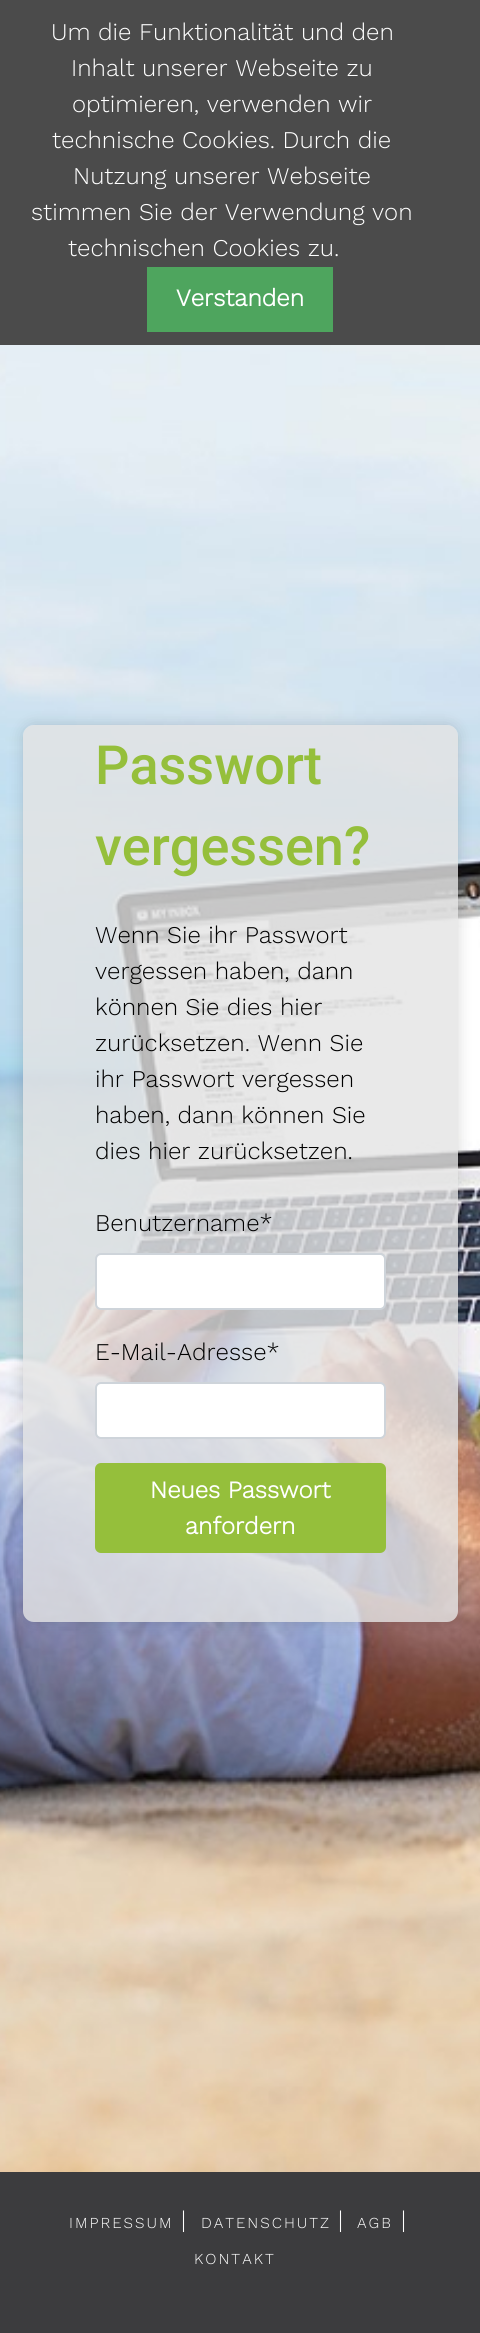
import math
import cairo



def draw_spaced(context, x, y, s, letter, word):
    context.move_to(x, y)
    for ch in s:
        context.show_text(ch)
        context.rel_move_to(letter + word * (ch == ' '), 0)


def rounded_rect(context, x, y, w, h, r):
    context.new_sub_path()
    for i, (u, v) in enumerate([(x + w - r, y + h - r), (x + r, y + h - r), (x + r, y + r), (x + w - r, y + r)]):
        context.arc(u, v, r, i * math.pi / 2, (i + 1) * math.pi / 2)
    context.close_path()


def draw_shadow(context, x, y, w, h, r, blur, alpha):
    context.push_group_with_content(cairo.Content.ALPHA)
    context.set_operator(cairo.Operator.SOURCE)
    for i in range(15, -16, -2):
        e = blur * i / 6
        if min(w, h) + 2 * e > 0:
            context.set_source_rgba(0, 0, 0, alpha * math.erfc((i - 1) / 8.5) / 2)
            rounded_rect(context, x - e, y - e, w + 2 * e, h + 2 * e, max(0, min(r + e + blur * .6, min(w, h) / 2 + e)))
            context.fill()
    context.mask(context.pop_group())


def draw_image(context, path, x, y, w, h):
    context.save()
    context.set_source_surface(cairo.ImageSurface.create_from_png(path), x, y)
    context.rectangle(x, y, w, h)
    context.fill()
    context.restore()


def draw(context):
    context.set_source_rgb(1, 1, 1)
    context.paint()
    context.set_source_rgb(75 / 255, 75 / 255, 75 / 255)
    context.rectangle(0, 0, 480, 345)
    context.fill()
    context.set_source_rgb(78 / 255, 165 / 255, 94 / 255)
    context.rectangle(147, 267, 186, 65)
    context.fill()
    draw_image(context, "images/1.png", 0, 345, 480, 1827)
    context.save()
    context.set_fill_rule(cairo.FillRule.EVEN_ODD)
    context.new_path()
    context.move_to(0, 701)
    context.line_to(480, 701)
    context.line_to(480, 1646)
    context.line_to(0, 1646)
    context.close_path()
    context.move_to(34, 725)
    context.line_to(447, 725)
    context.curve_to(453, 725, 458, 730, 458, 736)
    context.line_to(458, 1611)
    context.curve_to(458, 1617, 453, 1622, 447, 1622)
    context.line_to(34, 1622)
    context.curve_to(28, 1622, 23, 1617, 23, 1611)
    context.line_to(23, 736)
    context.curve_to(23, 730, 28, 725, 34, 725)
    context.close_path()
    context.clip()
    context.set_source_rgb(0, 0, 0)
    draw_shadow(context, 23, 725, 435, 897, 11, 7.5, 0.15)
    context.restore()
    context.set_source_rgba(227 / 255, 227 / 255, 227 / 255, 0.8)
    rounded_rect(context, 23, 725, 435, 897, 11)
    context.fill()
    context.set_source_rgb(1, 1, 1)
    rounded_rect(context, 96, 1254, 289, 55, 5)
    context.fill_preserve()
    context.set_source_rgb(206 / 255, 212 / 255, 218 / 255)
    context.stroke()
    context.set_source_rgb(1, 1, 1)
    rounded_rect(context, 96, 1383, 289, 55, 5)
    context.fill_preserve()
    context.set_source_rgb(206 / 255, 212 / 255, 218 / 255)
    context.stroke()
    context.set_source_rgb(149 / 255, 191 / 255, 59 / 255)
    rounded_rect(context, 95, 1463, 291, 90, 6)
    context.fill()
    context.set_source_rgb(60 / 255, 60 / 255, 62 / 255)
    context.rectangle(0, 2172, 480, 161)
    context.fill()
    context.select_font_face("Work Sans Light")
    context.set_font_size(24)
    context.set_source_rgb(1, 1, 1)
    context.move_to(51, 40)
    context.show_text("Um die Funktionalität und den")
    context.move_to(71, 76)
    context.show_text("Inhalt unserer Webseite zu")
    context.move_to(72, 112)
    context.show_text("optimieren, verwenden wir")
    context.move_to(52, 148)
    context.show_text("technische Cookies. Durch die")
    context.move_to(73, 184)
    context.show_text("Nutzung unserer Webseite")
    context.move_to(31, 220)
    context.show_text("stimmen Sie der Verwendung von")
    context.move_to(68, 256)
    context.show_text("technischen Cookies zu.")
    context.select_font_face("Work Sans", cairo.FontSlant.NORMAL, cairo.FontWeight.BOLD)
    context.move_to(176, 306)
    context.show_text("Verstanden")
    context.select_font_face("Roboto Medium")
    context.set_font_size(54)
    context.set_source_rgb(149 / 255, 191 / 255, 59 / 255)
    context.move_to(95, 784)
    context.show_text("Passwort")
    context.move_to(95, 865)
    context.show_text("vergessen?")
    context.select_font_face("Work Sans Light")
    context.set_font_size(24)
    context.set_source_rgb(0, 0, 0)
    context.move_to(95, 943)
    context.show_text("Wenn Sie ihr Passwort")
    context.move_to(95, 979)
    context.show_text("vergessen haben, dann")
    context.move_to(95, 1015)
    context.show_text("können Sie dies hier")
    context.move_to(95, 1051)
    context.show_text("zurücksetzen. Wenn Sie")
    context.move_to(95, 1087)
    context.show_text("ihr Passwort vergessen")
    context.move_to(95, 1123)
    context.show_text("haben, dann können Sie")
    context.move_to(95, 1159)
    context.show_text("dies hier zurücksetzen.")
    context.move_to(95, 1231)
    context.show_text("Benutzername*")
    context.move_to(95, 1360)
    context.show_text("E-Mail-Adresse*")
    context.select_font_face("Work Sans", cairo.FontSlant.NORMAL, cairo.FontWeight.BOLD)
    context.set_source_rgb(1, 1, 1)
    context.move_to(150, 1498)
    context.show_text("Neues Passwort")
    context.move_to(185, 1534)
    context.show_text("anfordern")
    context.select_font_face("Work Sans Light")
    context.set_font_size(15.25)
    draw_spaced(context, 69, 2228, "IMPRESSUM", 2, 0)
    context.set_font_size(24)
    draw_spaced(context, 181, 2228, "|", 2, 0)
    context.set_font_size(15.25)
    draw_spaced(context, 201, 2228, "DATENSCHUTZ", 2, 0)
    context.set_font_size(24)
    draw_spaced(context, 338, 2228, "|", 2, 0)
    context.set_font_size(15.25)
    draw_spaced(context, 357, 2228, "AGB", 2, 0)
    context.set_font_size(24)
    draw_spaced(context, 401, 2228, "|", 2, 0)
    context.set_font_size(15.25)
    draw_spaced(context, 194, 2264, "KONTAKT", 2, 0)


surface = cairo.ImageSurface(cairo.Format.RGB24, 480, 2333)
context = cairo.Context(surface)
options = cairo.FontOptions()
options.set_hint_metrics(cairo.HintMetrics.OFF)
options.set_hint_style(cairo.HintStyle.NONE)
context.set_font_options(options)
context.set_miter_limit(4)
draw(context)
surface.write_to_png("out.png")
